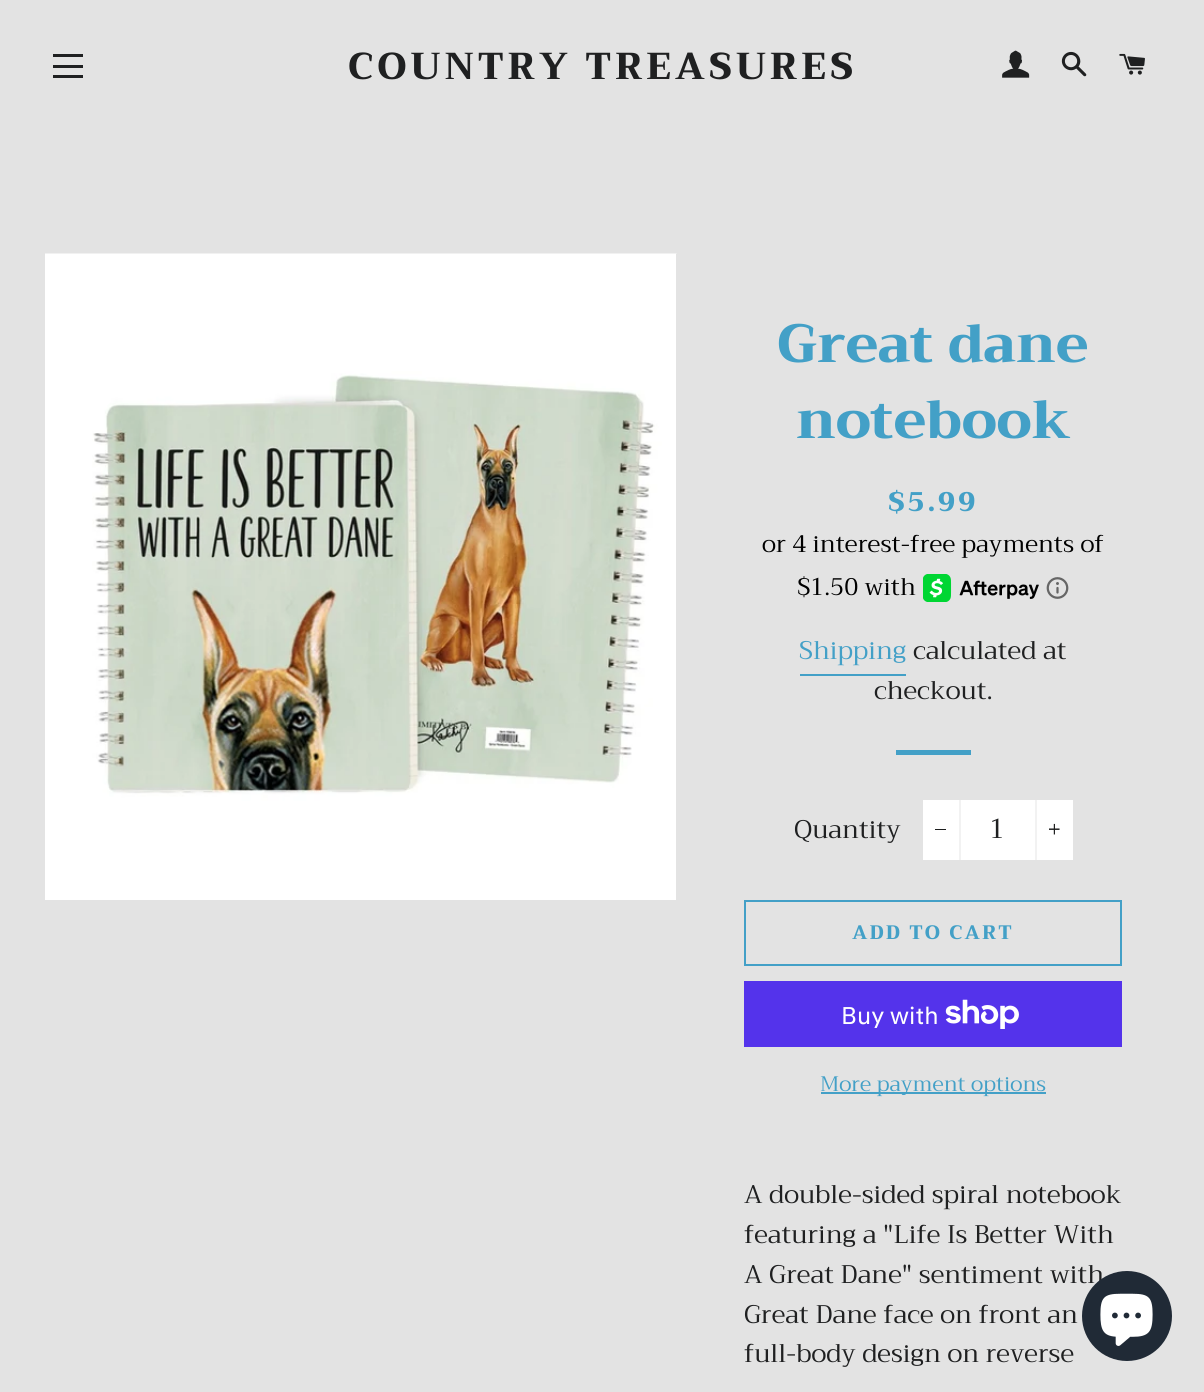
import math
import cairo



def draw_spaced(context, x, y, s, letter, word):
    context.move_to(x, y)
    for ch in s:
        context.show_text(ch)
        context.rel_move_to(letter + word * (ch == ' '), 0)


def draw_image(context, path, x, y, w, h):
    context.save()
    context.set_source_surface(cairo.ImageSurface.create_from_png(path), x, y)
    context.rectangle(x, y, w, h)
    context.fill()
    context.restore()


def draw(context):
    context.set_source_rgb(227 / 255, 227 / 255, 227 / 255)
    context.paint()
    context.set_source_rgb(31 / 255, 32 / 255, 33 / 255)
    context.rectangle(53, 54, 30, 3)
    context.fill()
    context.rectangle(53, 65, 30, 3)
    context.fill()
    context.rectangle(53, 75, 30, 3)
    context.fill()
    draw_image(context, "images/1.png", 1002, 50, 28, 28)
    draw_image(context, "images/2.png", 1061, 51, 26, 26)
    draw_image(context, "images/3.png", 1119, 53, 26, 22)
    context.set_source_rgb(198 / 255, 198 / 255, 198 / 255)
    context.rectangle(676, 254, 1, 646)
    context.fill()
    draw_image(context, "images/4.png", 45, 253, 632, 647)
    draw_image(context, "images/5.png", 923, 574, 116, 28)
    draw_image(context, "images/6.png", 1046, 577, 23, 22)
    context.set_source_rgb(67 / 255, 160 / 255, 199 / 255)
    context.rectangle(800, 674, 106, 2)
    context.fill()
    context.rectangle(896, 750, 75, 5)
    context.fill()
    context.set_source_rgb(1, 1, 1)
    context.rectangle(923, 800, 150, 60)
    context.fill()
    context.set_source_rgb(242 / 255, 242 / 255, 242 / 255)
    context.rectangle(959, 800, 2, 60)
    context.fill()
    context.set_source_rgb(28 / 255, 29 / 255, 29 / 255)
    context.rectangle(935, 829, 11, 1)
    context.fill()
    context.set_source_rgb(242 / 255, 242 / 255, 242 / 255)
    context.rectangle(1035, 800, 2, 60)
    context.fill()
    draw_image(context, "images/7.png", 1049, 823, 11, 12)
    context.rectangle(745, 901, 376, 64)
    context.set_source_rgb(67 / 255, 160 / 255, 199 / 255)
    context.stroke()
    context.set_source_rgb(84 / 255, 51 / 255, 235 / 255)
    context.rectangle(744, 981, 378, 66)
    context.fill()
    draw_image(context, "images/8.png", 945, 999, 74, 30)
    context.set_source_rgb(67 / 255, 160 / 255, 199 / 255)
    context.rectangle(821, 1092, 225, 2)
    context.fill()
    context.select_font_face("Trirong ExtraBold")
    context.set_font_size(37.5)
    context.set_source_rgb(31 / 255, 32 / 255, 33 / 255)
    draw_spaced(context, 348, 79, "COUNTRY TREASURES", 3.75, 0)
    context.set_font_size(54)
    context.set_source_rgb(67 / 255, 160 / 255, 199 / 255)
    context.move_to(777, 362)
    context.show_text("Great dane")
    context.move_to(796, 438)
    context.show_text("notebook")
    context.set_font_size(27)
    draw_spaced(context, 888, 511, "$5.99", 2.75, 0)
    context.select_font_face("Trirong")
    context.set_font_size(24)
    context.set_source_rgb(0, 0, 0)
    context.move_to(762, 552)
    context.show_text("or 4 interest-free payments of")
    context.move_to(797, 595)
    context.show_text("$1.50 with")
    context.set_font_size(25.5)
    context.set_source_rgb(67 / 255, 160 / 255, 199 / 255)
    context.move_to(799, 659)
    context.show_text("Shipping")
    context.set_source_rgb(31 / 255, 32 / 255, 33 / 255)
    context.move_to(913, 659)
    context.show_text("calculated at")
    context.move_to(874, 699)
    context.show_text("checkout.")
    context.move_to(794, 838)
    context.show_text("Quantity")
    context.set_font_size(27)
    context.move_to(989, 838)
    context.show_text("1")
    context.select_font_face("Trirong ExtraBold")
    context.set_font_size(19.5)
    context.set_source_rgb(67 / 255, 160 / 255, 199 / 255)
    draw_spaced(context, 852, 939, "ADD TO CART", 2, 0)
    context.select_font_face("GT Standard")
    context.set_font_size(24)
    context.set_source_rgb(1, 1, 1)
    context.move_to(841, 1024)
    context.show_text("Buy with")
    context.select_font_face("Trirong")
    context.set_font_size(21)
    context.set_source_rgb(67 / 255, 160 / 255, 199 / 255)
    context.move_to(820, 1091)
    context.show_text("More payment options")
    context.set_font_size(25.5)
    context.set_source_rgb(31 / 255, 32 / 255, 33 / 255)
    context.move_to(744, 1203)
    context.show_text("A double-sided spiral notebook")
    context.move_to(744, 1243)
    context.show_text("featuring a \"Life Is Better With")
    context.move_to(744, 1283)
    context.show_text("A Great Dane\" sentiment with")
    context.move_to(744, 1323)
    context.show_text("Great Dane face on front an")
    context.move_to(744, 1362)
    context.show_text("full-body design on reverse")
    context.set_source_rgb(32 / 255, 42 / 255, 54 / 255)
    context.new_path()
    context.arc(1127, 1316, 45, 0, 2 * math.pi)
    context.fill()
    draw_image(context, "images/9.png", 1100, 1293, 53, 53)


surface = cairo.ImageSurface(cairo.Format.RGB24, 1204, 1392)
context = cairo.Context(surface)
options = cairo.FontOptions()
options.set_hint_metrics(cairo.HintMetrics.OFF)
options.set_hint_style(cairo.HintStyle.NONE)
context.set_font_options(options)
context.set_miter_limit(4)
draw(context)
surface.write_to_png("out.png")
